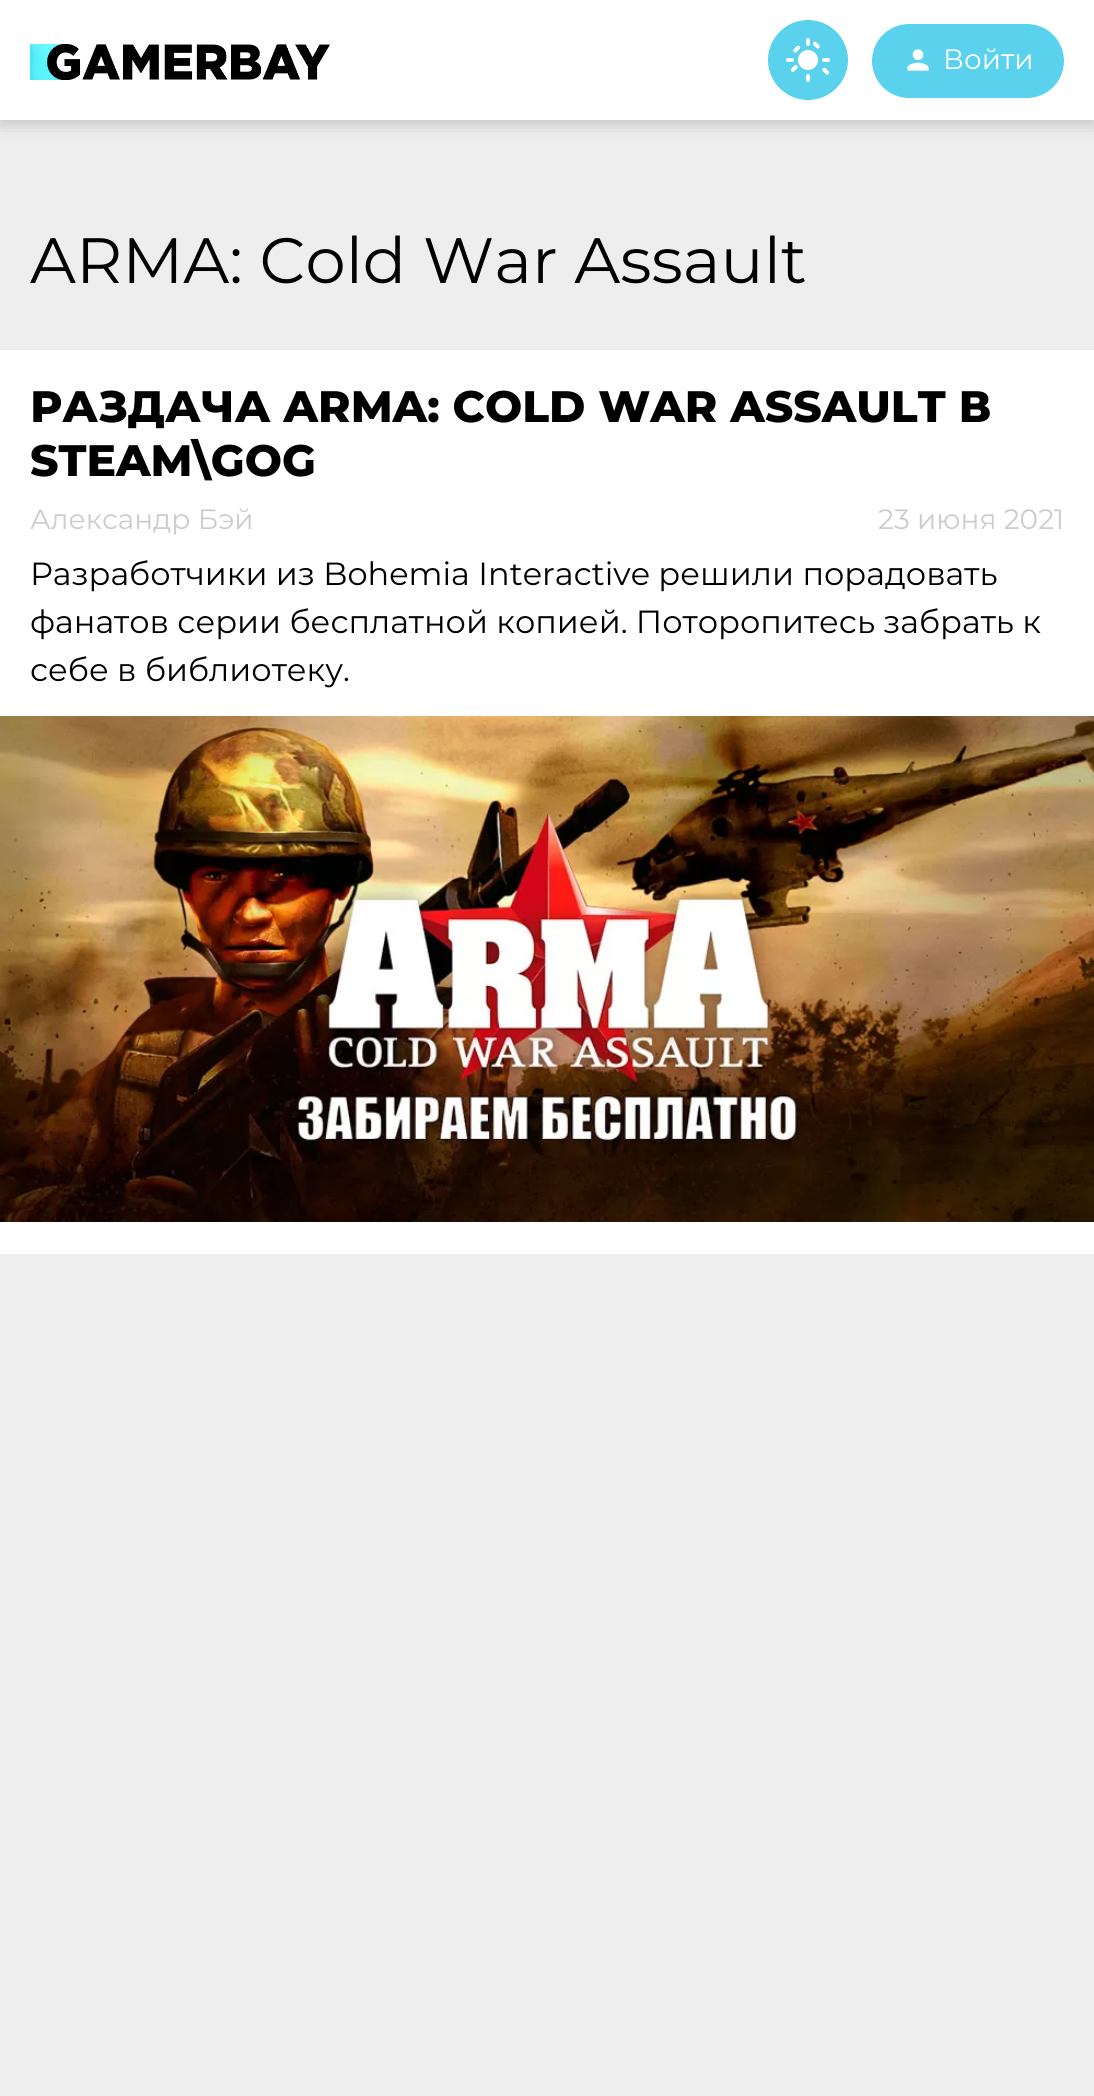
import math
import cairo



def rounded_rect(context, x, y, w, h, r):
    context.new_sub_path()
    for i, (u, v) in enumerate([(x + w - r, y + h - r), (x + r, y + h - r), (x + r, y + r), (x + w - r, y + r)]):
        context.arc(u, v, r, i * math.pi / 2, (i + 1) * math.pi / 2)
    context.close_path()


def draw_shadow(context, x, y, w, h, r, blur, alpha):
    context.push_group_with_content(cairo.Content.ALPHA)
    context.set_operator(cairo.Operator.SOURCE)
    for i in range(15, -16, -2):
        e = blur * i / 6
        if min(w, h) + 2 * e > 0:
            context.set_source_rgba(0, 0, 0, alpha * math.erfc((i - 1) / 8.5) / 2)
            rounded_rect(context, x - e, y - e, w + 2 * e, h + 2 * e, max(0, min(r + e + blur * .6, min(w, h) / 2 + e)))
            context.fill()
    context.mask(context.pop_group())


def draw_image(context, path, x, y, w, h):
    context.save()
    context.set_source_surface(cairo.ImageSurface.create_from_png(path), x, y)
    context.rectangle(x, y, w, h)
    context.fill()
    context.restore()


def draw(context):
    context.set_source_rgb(238 / 255, 238 / 255, 238 / 255)
    context.paint()
    context.set_source_rgb(0, 0, 0)
    draw_shadow(context, 0, 4, 1094, 120, 0, 10, 0.1)
    context.set_source_rgb(1, 1, 1)
    context.rectangle(0, 0, 1094, 120)
    context.fill()
    context.save()
    context.rectangle(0, 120, 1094, 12)
    context.clip()
    context.set_source_rgb(0, 0, 0)
    draw_shadow(context, 0, 4, 1094, 120, 0, 10, 0.1)
    context.restore()
    draw_image(context, "images/1.png", 30, 44, 300, 36)
    context.set_source_rgb(90 / 255, 210 / 255, 237 / 255)
    context.arc(808, 60, 40, 0, 2 * math.pi)
    context.fill()
    draw_image(context, "images/2.png", 786, 38, 44, 44)
    rounded_rect(context, 872, 24, 192, 74, 37)
    context.fill()
    draw_image(context, "images/3.png", 907, 49, 22, 22)
    context.set_source_rgb(1, 1, 1)
    context.rectangle(0, 350, 1094, 904)
    context.fill()
    draw_image(context, "images/4.png", 0, 716, 1094, 506)
    context.select_font_face("Montserrat")
    context.set_font_size(28)
    context.move_to(943, 69)
    context.show_text("Войти")
    context.set_font_size(64)
    context.set_source_rgb(0, 0, 0)
    context.move_to(30, 283)
    context.show_text("ARMA: Cold War Assault")
    context.select_font_face("Montserrat ExtraBold")
    context.set_font_size(44)
    context.move_to(30, 422)
    context.show_text("РАЗДАЧА ARMA: COLD WAR ASSAULT В")
    context.move_to(30, 476)
    context.show_text("STEAM\\GOG")
    context.select_font_face("Montserrat")
    context.set_font_size(28)
    context.set_source_rgb(205 / 255, 204 / 255, 204 / 255)
    context.move_to(30, 529)
    context.show_text("Александр Бэй")
    context.move_to(878, 529)
    context.show_text("23 июня 2021")
    context.set_font_size(32)
    context.set_source_rgb(0, 0, 0)
    context.move_to(30, 585)
    context.show_text("Разработчики из Bohemia Interactive решили порадовать")
    context.move_to(30, 633)
    context.show_text("фанатов серии бесплатной копией. Поторопитесь забрать к")
    context.move_to(30, 681)
    context.show_text("себе в библиотеку.")


surface = cairo.ImageSurface(cairo.Format.RGB24, 1094, 2096)
context = cairo.Context(surface)
options = cairo.FontOptions()
options.set_hint_metrics(cairo.HintMetrics.OFF)
options.set_hint_style(cairo.HintStyle.NONE)
context.set_font_options(options)
context.set_miter_limit(4)
draw(context)
surface.write_to_png("out.png")
